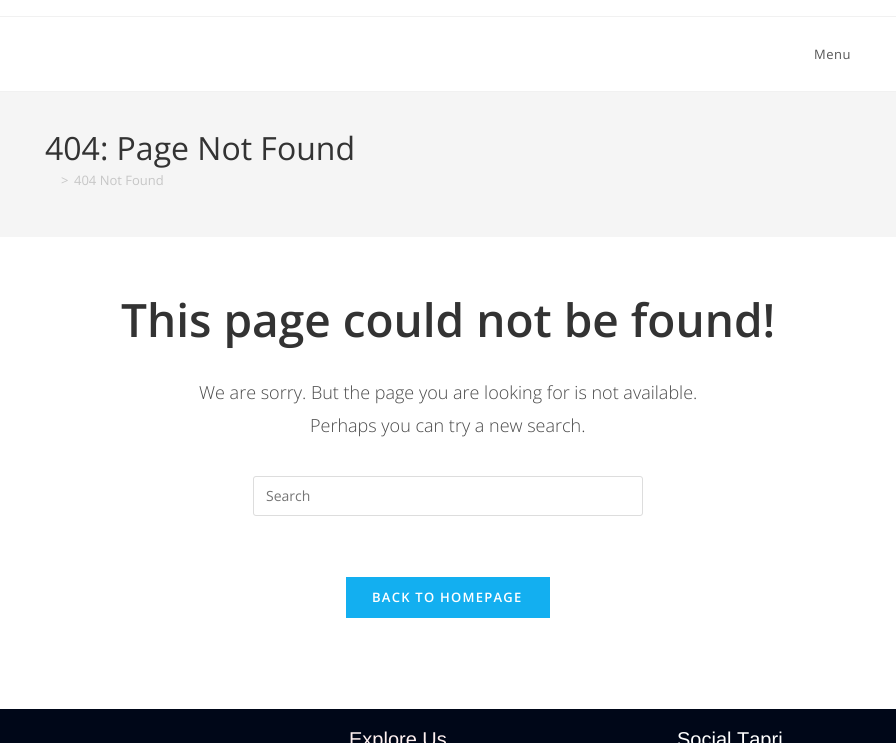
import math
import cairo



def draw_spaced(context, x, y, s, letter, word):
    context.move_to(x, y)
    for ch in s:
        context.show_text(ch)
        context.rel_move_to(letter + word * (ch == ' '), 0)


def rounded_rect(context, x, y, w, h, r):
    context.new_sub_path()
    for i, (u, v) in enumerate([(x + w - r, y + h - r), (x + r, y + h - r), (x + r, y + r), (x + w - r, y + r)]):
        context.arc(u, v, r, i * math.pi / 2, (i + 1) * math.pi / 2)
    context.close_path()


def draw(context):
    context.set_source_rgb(1, 1, 1)
    context.paint()
    context.set_source_rgb(241 / 255, 241 / 255, 241 / 255)
    context.rectangle(0, 16, 896, 1)
    context.fill()
    context.rectangle(0, 91, 896, 1)
    context.fill()
    context.set_source_rgb(245 / 255, 245 / 255, 245 / 255)
    context.rectangle(0, 92, 896, 145)
    context.fill()
    rounded_rect(context, 253.5, 476.5, 389, 39, 2.5)
    context.set_source_rgb(221 / 255, 221 / 255, 221 / 255)
    context.set_line_width(1)
    context.stroke()
    context.set_source_rgb(19 / 255, 175 / 255, 240 / 255)
    context.rectangle(346, 577, 204, 41)
    context.fill()
    context.set_source_rgb(0, 7 / 255, 24 / 255)
    context.rectangle(0, 709, 896, 34)
    context.fill()
    context.select_font_face("Open Sans")
    context.set_font_size(13)
    context.set_source_rgb(85 / 255, 85 / 255, 85 / 255)
    draw_spaced(context, 814, 59, "Menu", 0.5, 0)
    context.set_font_size(32)
    context.set_source_rgb(51 / 255, 51 / 255, 51 / 255)
    context.move_to(45, 160)
    context.show_text("404: Page Not Found")
    context.set_font_size(13)
    context.set_source_rgb(198 / 255, 198 / 255, 198 / 255)
    context.move_to(61, 185)
    context.show_text(">")
    context.move_to(74, 185)
    context.show_text("404 Not Found")
    context.select_font_face("Open Sans SemiBold")
    context.set_font_size(46)
    context.set_source_rgb(51 / 255, 51 / 255, 51 / 255)
    context.move_to(121, 337)
    context.show_text("This page could not be found!")
    context.select_font_face("Open Sans Light")
    context.set_font_size(18)
    context.set_source_rgb(74 / 255, 74 / 255, 74 / 255)
    context.move_to(199, 399)
    context.show_text("We are sorry. But the page you are looking for is not available.")
    context.move_to(310, 432)
    context.show_text("Perhaps you can try a new search.")
    context.select_font_face("Open Sans")
    context.set_font_size(14)
    context.set_source_rgb(117 / 255, 117 / 255, 117 / 255)
    context.move_to(266, 501)
    context.show_text("Search")
    context.select_font_face("Open Sans SemiBold")
    context.set_font_size(13)
    context.set_source_rgb(1, 1, 1)
    draw_spaced(context, 372, 602, "BACK TO HOMEPAGE", 1.25, 0)
    context.select_font_face("Liberation Sans")
    context.set_font_size(20)
    context.set_source_rgb(1, 241 / 255, 241 / 255)
    context.move_to(349, 746)
    context.show_text("Explore Us")
    context.set_source_rgb(1, 1, 1)
    context.move_to(677, 746)
    context.show_text("Social Tapri")


surface = cairo.ImageSurface(cairo.Format.RGB24, 896, 743)
context = cairo.Context(surface)
options = cairo.FontOptions()
options.set_hint_metrics(cairo.HintMetrics.OFF)
options.set_hint_style(cairo.HintStyle.NONE)
context.set_font_options(options)
context.set_miter_limit(4)
draw(context)
surface.write_to_png("out.png")
